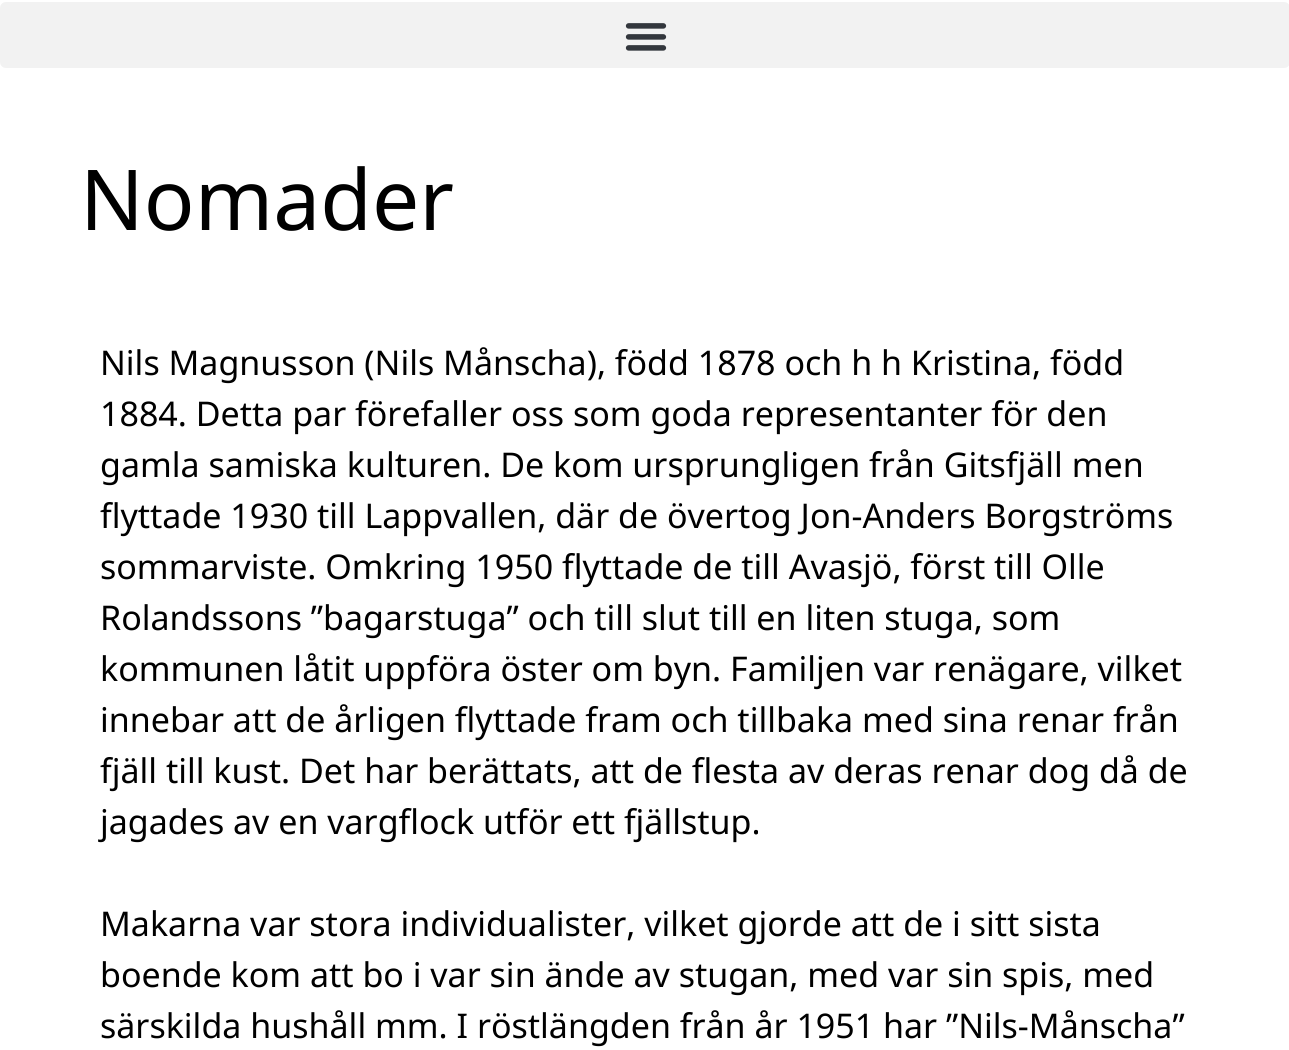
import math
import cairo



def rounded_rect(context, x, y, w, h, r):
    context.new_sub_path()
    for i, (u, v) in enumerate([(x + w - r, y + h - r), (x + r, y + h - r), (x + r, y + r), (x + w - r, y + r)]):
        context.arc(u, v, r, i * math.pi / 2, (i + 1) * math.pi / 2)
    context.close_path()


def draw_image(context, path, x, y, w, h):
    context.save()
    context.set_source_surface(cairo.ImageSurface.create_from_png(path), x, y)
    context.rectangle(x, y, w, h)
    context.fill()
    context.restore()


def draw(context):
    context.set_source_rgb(1, 1, 1)
    context.paint()
    context.set_source_rgb(242 / 255, 242 / 255, 242 / 255)
    rounded_rect(context, 0, 2, 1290, 66, 6)
    context.fill()
    draw_image(context, "images/1.png", 625, 23, 42, 28)
    context.select_font_face("Noto Sans")
    context.set_font_size(84)
    context.set_source_rgb(0, 0, 0)
    context.move_to(80, 230)
    context.show_text("Nomader")
    context.set_font_size(34)
    context.move_to(100, 375)
    context.show_text("Nils Magnusson (Nils Månscha), född 1878 och h h Kristina, född")
    context.move_to(100, 426)
    context.show_text("1884. Detta par förefaller oss som goda representanter för den")
    context.move_to(100, 477)
    context.show_text("gamla samiska kulturen. De kom ursprungligen från Gitsfjäll men")
    context.move_to(100, 528)
    context.show_text("flyttade 1930 till Lappvallen, där de övertog Jon-Anders Borgströms")
    context.move_to(100, 579)
    context.show_text("sommarviste. Omkring 1950 flyttade de till Avasjö, först till Olle")
    context.move_to(100, 630)
    context.show_text("Rolandssons ”bagarstuga” och till slut till en liten stuga, som")
    context.move_to(100, 681)
    context.show_text("kommunen låtit uppföra öster om byn. Familjen var renägare, vilket")
    context.move_to(100, 732)
    context.show_text("innebar att de årligen flyttade fram och tillbaka med sina renar från")
    context.move_to(100, 783)
    context.show_text("fjäll till kust. Det har berättats, att de flesta av deras renar dog då de")
    context.move_to(100, 834)
    context.show_text("jagades av en vargflock utför ett fjällstup.")
    context.move_to(100, 936)
    context.show_text("Makarna var stora individualister, vilket gjorde att de i sitt sista")
    context.move_to(100, 987)
    context.show_text("boende kom att bo i var sin ände av stugan, med var sin spis, med")
    context.move_to(100, 1038)
    context.show_text("särskilda hushåll mm. I röstlängden från år 1951 har ”Nils-Månscha”")


surface = cairo.ImageSurface(cairo.Format.RGB24, 1289, 1050)
context = cairo.Context(surface)
options = cairo.FontOptions()
options.set_hint_metrics(cairo.HintMetrics.OFF)
options.set_hint_style(cairo.HintStyle.NONE)
context.set_font_options(options)
context.set_miter_limit(4)
draw(context)
surface.write_to_png("out.png")
